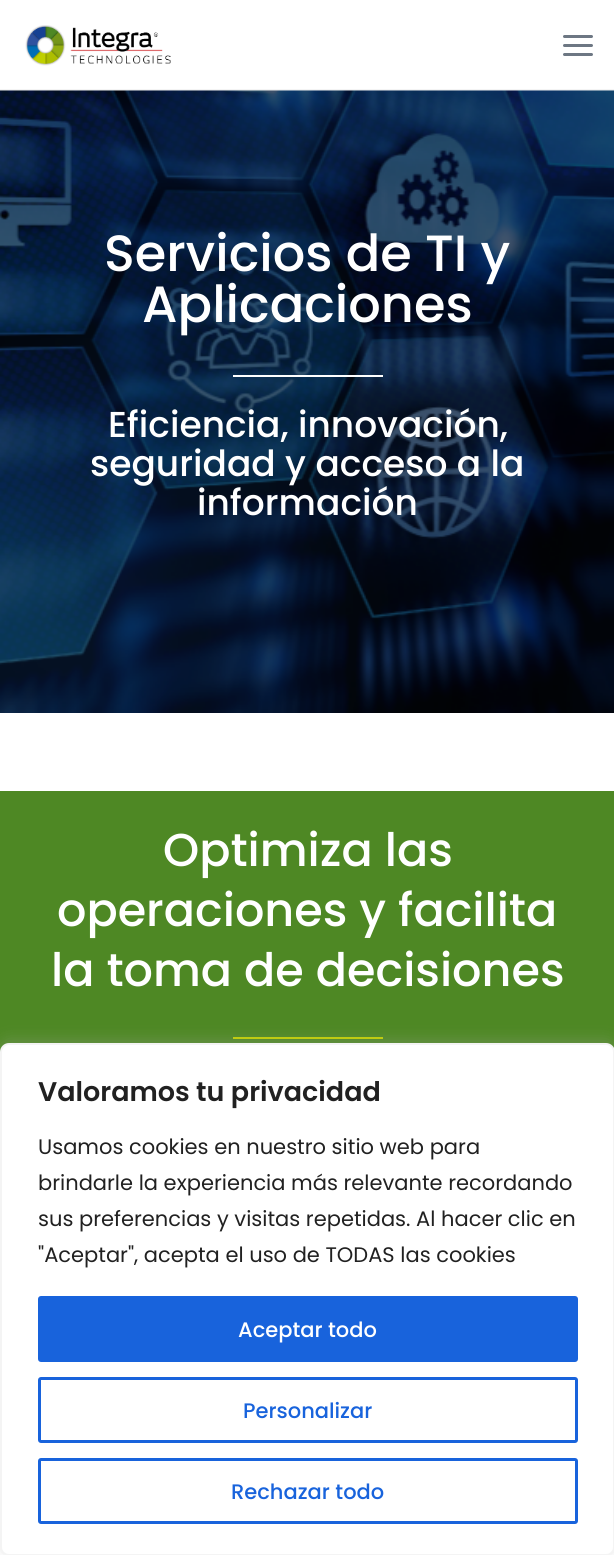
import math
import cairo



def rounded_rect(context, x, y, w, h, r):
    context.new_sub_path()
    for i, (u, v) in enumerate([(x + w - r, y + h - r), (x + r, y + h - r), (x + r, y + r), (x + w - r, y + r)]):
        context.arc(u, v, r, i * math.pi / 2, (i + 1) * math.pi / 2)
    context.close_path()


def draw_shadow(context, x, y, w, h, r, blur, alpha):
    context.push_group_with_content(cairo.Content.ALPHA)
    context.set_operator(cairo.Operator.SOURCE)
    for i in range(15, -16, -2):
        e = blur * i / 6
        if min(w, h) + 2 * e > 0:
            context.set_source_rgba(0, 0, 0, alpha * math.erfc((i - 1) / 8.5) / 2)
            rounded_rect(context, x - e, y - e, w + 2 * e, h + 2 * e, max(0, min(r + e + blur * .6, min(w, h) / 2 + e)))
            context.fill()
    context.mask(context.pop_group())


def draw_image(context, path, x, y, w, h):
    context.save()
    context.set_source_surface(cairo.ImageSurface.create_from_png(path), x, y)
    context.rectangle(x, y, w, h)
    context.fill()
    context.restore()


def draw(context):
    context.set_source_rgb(1, 1, 1)
    context.paint()
    draw_image(context, "images/2.png", 0, 90, 614, 623)
    context.set_source_rgba(235 / 255, 235 / 255, 235 / 255, 0.5)
    context.rectangle(0, 89, 614, 2)
    context.fill()
    draw_image(context, "images/1.png", 25, 25, 146, 41)
    context.set_source_rgb(109 / 255, 119 / 255, 131 / 255)
    rounded_rect(context, 563, 44, 30, 3, 1.5)
    context.fill()
    rounded_rect(context, 563, 35, 30, 3, 1.5)
    context.fill()
    rounded_rect(context, 563, 53, 30, 3, 1.5)
    context.fill()
    context.set_source_rgb(1, 1, 1)
    context.rectangle(233, 375, 150, 2)
    context.fill()
    context.set_source_rgb(78 / 255, 136 / 255, 36 / 255)
    context.rectangle(0, 791, 614, 261)
    context.fill()
    context.set_source_rgb(193 / 255, 208 / 255, 0)
    context.rectangle(233, 1037, 150, 2)
    context.fill()
    context.set_source_rgb(172 / 255, 171 / 255, 171 / 255)
    draw_shadow(context, 0, 1041, 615, 513, 9, 7.5, 0.3)
    context.set_source_rgb(1, 1, 1)
    rounded_rect(context, 1, 1044, 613, 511, 8)
    context.fill_preserve()
    context.set_source_rgb(244 / 255, 244 / 255, 244 / 255)
    context.stroke()
    context.set_source_rgb(24 / 255, 99 / 255, 220 / 255)
    rounded_rect(context, 39.5, 1297.5, 537, 63, 1.5)
    context.fill_preserve()
    context.set_line_width(3)
    context.stroke()
    rounded_rect(context, 39.5, 1378.5, 537, 63, 1.5)
    context.stroke()
    rounded_rect(context, 39.5, 1459.5, 537, 63, 1.5)
    context.stroke()
    context.select_font_face("Poppins Medium")
    context.set_font_size(51)
    context.set_source_rgb(1, 1, 1)
    context.move_to(104, 271)
    context.show_text("Servicios de TI y")
    context.move_to(142, 322)
    context.show_text("Aplicaciones")
    context.set_font_size(36)
    context.move_to(108, 437)
    context.show_text("Eficiencia, innovación,")
    context.move_to(90, 476)
    context.show_text("seguridad y acceso a la")
    context.move_to(197, 515)
    context.show_text("información")
    context.set_font_size(46.1)
    context.move_to(163, 866)
    context.show_text("Optimiza las")
    context.move_to(57, 926)
    context.show_text("operaciones y facilita")
    context.move_to(51, 986)
    context.show_text("la toma de decisiones")
    context.select_font_face("Poppins SemiBold")
    context.set_font_size(27)
    context.set_source_rgb(33 / 255, 33 / 255, 33 / 255)
    context.move_to(38, 1101)
    context.show_text("Valoramos tu privacidad")
    context.select_font_face("Poppins")
    context.set_font_size(21)
    context.move_to(38, 1154)
    context.show_text("Usamos cookies en nuestro sitio web para")
    context.move_to(38, 1190)
    context.show_text("brindarle la experiencia más relevante recordando")
    context.move_to(38, 1226)
    context.show_text("sus preferencias y visitas repetidas. Al hacer clic en")
    context.move_to(38, 1262)
    context.show_text("\"Aceptar\", acepta el uso de TODAS las cookies")
    context.select_font_face("Poppins Medium")
    context.set_source_rgb(1, 1, 1)
    context.move_to(238, 1337)
    context.show_text("Aceptar todo")
    context.set_source_rgb(24 / 255, 99 / 255, 220 / 255)
    context.move_to(243, 1418)
    context.show_text("Personalizar")
    context.move_to(231, 1499)
    context.show_text("Rechazar todo")


surface = cairo.ImageSurface(cairo.Format.RGB24, 614, 1555)
context = cairo.Context(surface)
options = cairo.FontOptions()
options.set_hint_metrics(cairo.HintMetrics.OFF)
options.set_hint_style(cairo.HintStyle.NONE)
context.set_font_options(options)
context.set_miter_limit(4)
draw(context)
surface.write_to_png("out.png")
